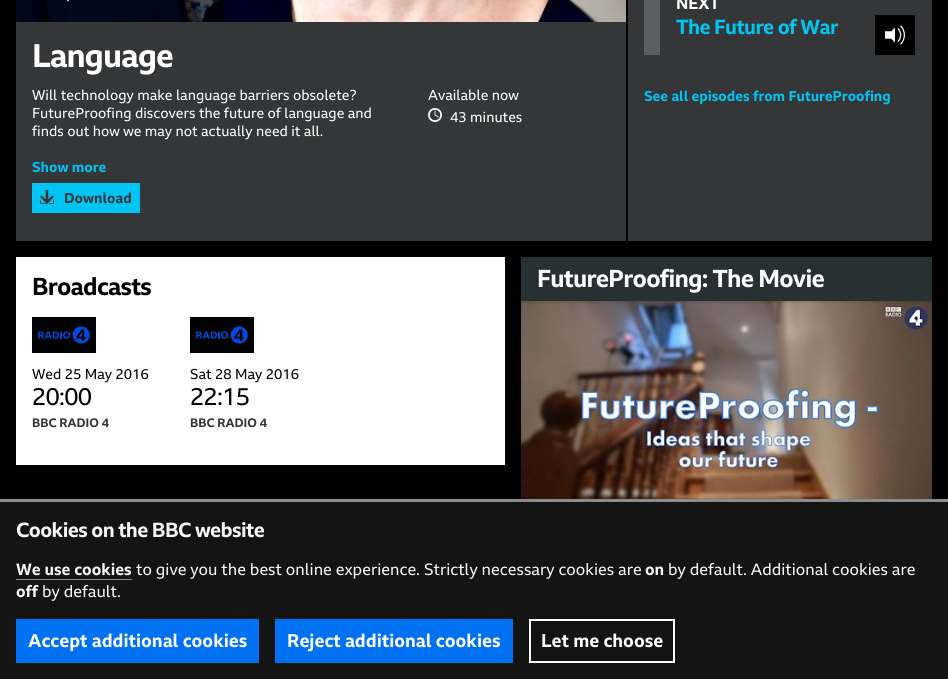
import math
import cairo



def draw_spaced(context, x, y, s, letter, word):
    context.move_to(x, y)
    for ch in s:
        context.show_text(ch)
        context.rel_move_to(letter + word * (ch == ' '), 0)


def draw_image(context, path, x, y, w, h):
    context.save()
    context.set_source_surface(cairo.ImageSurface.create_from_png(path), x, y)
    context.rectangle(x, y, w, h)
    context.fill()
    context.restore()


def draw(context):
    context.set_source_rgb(0, 0, 0)
    context.paint()
    context.set_source_rgb(52 / 255, 54 / 255, 56 / 255)
    context.rectangle(16, 22, 610, 219)
    context.fill()
    draw_image(context, "images/1.png", 16, 0, 610, 22)
    context.set_source_rgba(0, 0, 0, 0.7)
    context.rectangle(16, 0, 208, 22)
    context.fill()
    draw_image(context, "images/2.png", 66, 0, 4, 2)
    context.set_source_rgb(0, 196 / 255, 242 / 255)
    context.rectangle(32, 183, 108, 30)
    context.fill()
    draw_image(context, "images/3.png", 40, 190, 14, 14)
    draw_image(context, "images/4.png", 428, 108, 14, 14)
    context.set_source_rgb(52 / 255, 54 / 255, 56 / 255)
    context.rectangle(628, 0, 304, 241)
    context.fill()
    context.set_source_rgb(92 / 255, 94 / 255, 95 / 255)
    context.rectangle(644, 0, 16, 55)
    context.fill()
    context.set_source_rgb(0, 0, 0)
    context.rectangle(875, 15, 40, 40)
    context.fill()
    draw_image(context, "images/5.png", 885, 25, 20, 20)
    context.set_source_rgb(1, 1, 1)
    context.rectangle(16, 257, 489, 208)
    context.fill()
    draw_image(context, "images/6.png", 32, 317, 64, 36)
    draw_image(context, "images/6.png", 190, 317, 64, 36)
    context.set_source_rgb(39 / 255, 49 / 255, 50 / 255)
    context.rectangle(521, 257, 411, 44)
    context.fill()
    draw_image(context, "images/7.png", 521, 301, 411, 198)
    context.set_source_rgb(20 / 255, 20 / 255, 20 / 255)
    context.rectangle(0, 502, 948, 177)
    context.fill()
    context.set_source_rgb(138 / 255, 140 / 255, 142 / 255)
    context.rectangle(0, 499, 948, 3)
    context.fill()
    context.rectangle(16, 579, 116, 1)
    context.fill()
    context.set_source_rgb(0, 113 / 255, 241 / 255)
    context.rectangle(16, 619, 243, 44)
    context.fill()
    context.rectangle(275, 619, 238, 44)
    context.fill()
    context.rectangle(530, 620, 144, 42)
    context.set_source_rgb(1, 1, 1)
    context.stroke()
    context.select_font_face("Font", cairo.FontSlant.NORMAL, cairo.FontWeight.BOLD)
    context.set_font_size(32)
    draw_spaced(context, 32, 67, "Language", -1, 0)
    context.select_font_face("Font")
    context.set_font_size(14)
    context.move_to(32, 100)
    context.show_text("Will technology make language barriers obsolete?")
    context.move_to(32, 118)
    context.show_text("FutureProofing discovers the future of language and")
    context.move_to(32, 136)
    context.show_text("finds out how we may not actually need it all.")
    context.select_font_face("Font", cairo.FontSlant.NORMAL, cairo.FontWeight.BOLD)
    context.set_source_rgb(0, 196 / 255, 242 / 255)
    context.move_to(32, 172)
    context.show_text("Show more")
    context.set_source_rgb(52 / 255, 54 / 255, 56 / 255)
    context.move_to(64, 203)
    context.show_text("Download")
    context.select_font_face("Font")
    context.set_source_rgb(1, 1, 1)
    context.move_to(428, 100)
    context.show_text("Available now")
    context.move_to(450, 122)
    context.show_text("43 minutes")
    context.select_font_face("Font", cairo.FontSlant.NORMAL, cairo.FontWeight.BOLD)
    context.set_font_size(16)
    context.move_to(676, 9)
    context.show_text("NEXT")
    context.set_font_size(20)
    context.set_source_rgb(0, 196 / 255, 242 / 255)
    draw_spaced(context, 676, 34, "The Future of War", -0.6, 0)
    context.set_font_size(14)
    context.move_to(644, 101)
    context.show_text("See all episodes from FutureProofing")
    context.set_font_size(24)
    context.set_source_rgb(0, 0, 0)
    draw_spaced(context, 32, 295, "Broadcasts", -0.75, 0)
    context.select_font_face("Font")
    context.set_font_size(14)
    context.move_to(32, 379)
    context.show_text("Wed 25 May 2016")
    context.set_font_size(24)
    draw_spaced(context, 32, 405, "20:00", -0.75, 0)
    context.select_font_face("Font", cairo.FontSlant.NORMAL, cairo.FontWeight.BOLD)
    context.set_font_size(12)
    context.set_source_rgb(52 / 255, 54 / 255, 56 / 255)
    context.move_to(32, 427)
    context.show_text("BBC RADIO 4")
    context.select_font_face("Font")
    context.set_font_size(14)
    context.set_source_rgb(0, 0, 0)
    context.move_to(190, 379)
    context.show_text("Sat 28 May 2016")
    context.set_font_size(24)
    draw_spaced(context, 190, 405, "22:15", -0.75, 0)
    context.select_font_face("Font", cairo.FontSlant.NORMAL, cairo.FontWeight.BOLD)
    context.set_font_size(12)
    context.set_source_rgb(52 / 255, 54 / 255, 56 / 255)
    context.move_to(190, 427)
    context.show_text("BBC RADIO 4")
    context.set_font_size(24)
    context.set_source_rgb(1, 1, 1)
    draw_spaced(context, 537, 287, "FutureProofing: The Movie", -0.75, 0)
    context.set_font_size(20)
    context.set_source_rgb(246 / 255, 246 / 255, 246 / 255)
    draw_spaced(context, 16, 537, "Cookies on the BBC website", -0.6, 0)
    context.set_font_size(16)
    context.move_to(16, 575)
    context.show_text("We use cookies")
    context.select_font_face("Font")
    context.move_to(136, 575)
    context.show_text("to give you the best online experience. Strictly necessary cookies are")
    context.select_font_face("Font", cairo.FontSlant.NORMAL, cairo.FontWeight.BOLD)
    context.move_to(645, 575)
    context.show_text("on")
    context.select_font_face("Font")
    context.move_to(668, 575)
    context.show_text("by default. Additional cookies are")
    context.select_font_face("Font", cairo.FontSlant.NORMAL, cairo.FontWeight.BOLD)
    context.move_to(16, 597)
    context.show_text("off")
    context.select_font_face("Font")
    context.move_to(42, 597)
    context.show_text("by default.")
    context.select_font_face("Font", cairo.FontSlant.NORMAL, cairo.FontWeight.BOLD)
    context.set_font_size(18)
    context.set_source_rgb(1, 1, 1)
    context.move_to(28, 647)
    context.show_text("Accept additional cookies")
    context.move_to(287, 647)
    context.show_text("Reject additional cookies")
    context.move_to(541, 647)
    context.show_text("Let me choose")


surface = cairo.ImageSurface(cairo.Format.RGB24, 948, 679)
context = cairo.Context(surface)
options = cairo.FontOptions()
options.set_hint_metrics(cairo.HintMetrics.OFF)
options.set_hint_style(cairo.HintStyle.NONE)
context.set_font_options(options)
context.set_miter_limit(4)
draw(context)
surface.write_to_png("out.png")
